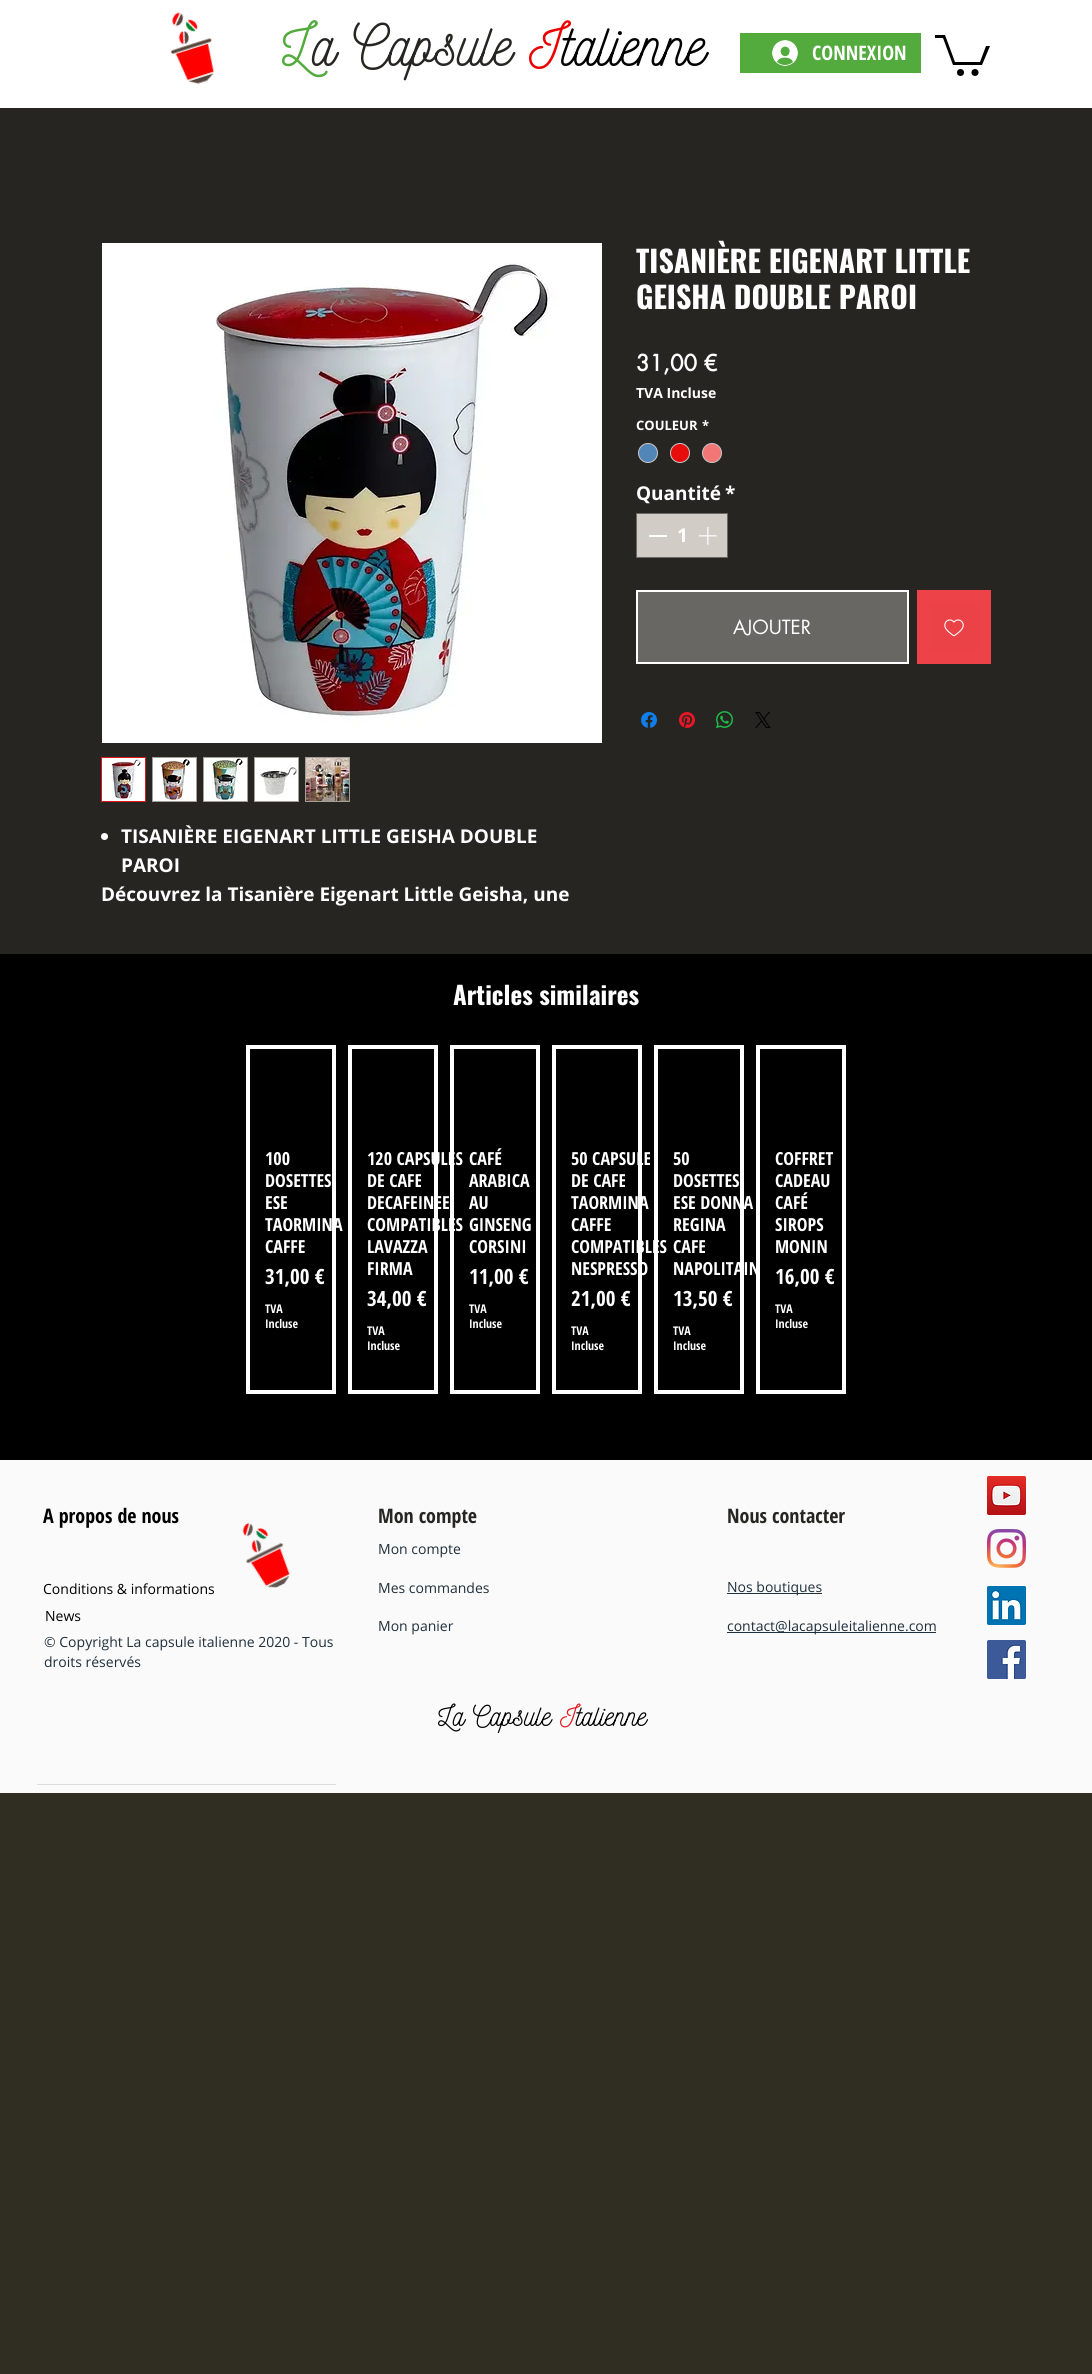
#include <cairo.h>
#include <math.h>
#include <stddef.h>

typedef struct { const char *family; double size; int italic, bold; unsigned color; } style_t;
static cairo_t *ctx;

static void ink(unsigned color) {
    cairo_set_source_rgb(ctx, (color >> 16) / 255.0, (color >> 8 & 255) / 255.0, (color & 255) / 255.0);
}

static void write(double x, double y, const char *s, const style_t *st) {
    cairo_select_font_face(ctx, st->family, st->italic ? CAIRO_FONT_SLANT_ITALIC : CAIRO_FONT_SLANT_NORMAL,
        st->bold ? CAIRO_FONT_WEIGHT_BOLD : CAIRO_FONT_WEIGHT_NORMAL);
    cairo_set_font_size(ctx, st->size);
    ink(st->color);
    cairo_move_to(ctx, x, y);
    cairo_show_text(ctx, s);
}

static void block(double x, double y, double w, double h, unsigned color) {
    ink(color);
    cairo_rectangle(ctx, x, y, w, h);
    cairo_fill(ctx);
}

static void paste(const char *path, double x, double y, double w, double h) {
    cairo_surface_t *image = cairo_image_surface_create_from_png(path);
    cairo_save(ctx);
    cairo_set_source_surface(ctx, image, x, y);
    cairo_rectangle(ctx, x, y, w, h);
    cairo_fill(ctx);
    cairo_restore(ctx);
    cairo_surface_destroy(image);
}

static const style_t s1 = {"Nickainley", 59, 0, 0, 0x52ab3c};
static const style_t s2 = {"Nickainley", 59, 0, 0, 0x272521};
static const style_t s3 = {"Nickainley", 59, 0, 0, 0xeb0000};
static const style_t s4 = {"Nickainley", 59, 0, 0, 0x000000};
static const style_t s5 = {"Open Sans Condensed", 20, 0, 1, 0xffffff};
static const style_t s6 = {"Oswald", 30, 0, 1, 0xffffff};
static const style_t s7 = {"futura", 22, 0, 1, 0xffffff};
static const style_t s8 = {"Open Sans", 14, 0, 1, 0xffffff};
static const style_t s9 = {"Open Sans", 13, 0, 1, 0xffffff};
static const style_t s10 = {"Open Sans", 19, 0, 1, 0xffffff};
static const style_t s11 = {"futura", 19, 0, 0, 0xffffff};
static const style_t s12 = {"Oswald", 25, 0, 1, 0xffffff};
static const style_t s13 = {"Open Sans Condensed", 18, 0, 1, 0xffffff};
static const style_t s14 = {"Open Sans Condensed", 21, 0, 1, 0xffffff};
static const style_t s15 = {"Open Sans Condensed", 12, 0, 1, 0xffffff};
static const style_t s16 = {"Open Sans Condensed", 20, 0, 1, 0x000000};
static const style_t s17 = {"Open Sans", 14, 0, 0, 0x000000};
static const style_t s18 = {"Open Sans", 14, 0, 0, 0x20303c};
static const style_t s19 = {"Open Sans Condensed", 20, 0, 1, 0x272521};
static const style_t s20 = {"Nickainley", 29, 0, 0, 0x000000};
static const style_t s21 = {"Nickainley", 29, 0, 0, 0xe21c21};

int main(void) {
    cairo_surface_t *surface = cairo_image_surface_create(CAIRO_FORMAT_RGB24, 1092, 2374);
    ctx = cairo_create(surface);
    cairo_font_options_t *options = cairo_font_options_create();
    cairo_font_options_set_hint_metrics(options, CAIRO_HINT_METRICS_OFF);
    cairo_font_options_set_hint_style(options, CAIRO_HINT_STYLE_NONE);
    cairo_set_font_options(ctx, options);
    cairo_set_miter_limit(ctx, 4);
    ink(0x302d22);
    cairo_paint(ctx);
    block(0, 0, 1092, 108, 0xffffff);
    paste("pic1.png", 170, 12, 45, 72);
    write(282, 66, "L", &s1);
    write(312, 66, "a Capsule", &s2);
    write(529, 66, "I", &s3);
    write(562, 66, "talienne", &s4);
    block(740, 33, 181, 40, 0x52ab3c);
    paste("pic2.png", 772, 40, 26, 26);
    write(812, 60, "CONNEXION", &s5);
    ink(0x000000);
    cairo_new_path(ctx);
    cairo_move_to(ctx, 990, 46);
    cairo_line_to(ctx, 982, 65);
    cairo_line_to(ctx, 953, 65);
    cairo_line_to(ctx, 943, 38);
    cairo_line_to(ctx, 935, 38);
    cairo_line_to(ctx, 935, 35);
    cairo_line_to(ctx, 945, 35);
    cairo_line_to(ctx, 955, 62);
    cairo_line_to(ctx, 980, 62);
    cairo_line_to(ctx, 986, 46);
    cairo_fill(ctx);
    cairo_arc(ctx, 975, 72.5, 3.5, 0, 2 * M_PI);
    cairo_fill(ctx);
    cairo_arc(ctx, 960.5, 72.5, 3.5, 0, 2 * M_PI);
    cairo_fill(ctx);
    block(0, 108, 1092, 846, 0x272521);
    write(636, 273, "TISANIÈRE EIGENART LITTLE", &s6);
    write(636, 309, "GEISHA DOUBLE PAROI", &s6);
    write(636, 371, "31,00 €", &s7);
    write(636, 398, "TVA Incluse", &s8);
    write(636, 430, "COULEUR", &s9);
    write(702, 430, "*", &s9);
    ink(0x5285b8);
    cairo_new_path(ctx);
    cairo_arc(ctx, 648, 453, 9.5, 0, 2 * M_PI);
    cairo_fill_preserve(ctx);
    ink(0xc9c9c9);
    cairo_set_line_width(ctx, 1);
    cairo_stroke(ctx);
    ink(0xe70d0d);
    cairo_arc(ctx, 680, 453, 9.5, 0, 2 * M_PI);
    cairo_fill_preserve(ctx);
    ink(0xc9c9c9);
    cairo_stroke(ctx);
    ink(0xf37676);
    cairo_arc(ctx, 712, 453, 9.5, 0, 2 * M_PI);
    cairo_fill_preserve(ctx);
    ink(0xc9c9c9);
    cairo_stroke(ctx);
    write(636, 500, "Quantité", &s10);
    write(725, 500, "*", &s10);
    ink(0xd1cdc6);
    cairo_rectangle(ctx, 636.5, 513.5, 91, 44);
    cairo_fill_preserve(ctx);
    ink(0x6b6863);
    cairo_stroke(ctx);
    block(649, 535, 18, 2, 0xffffff);
    write(677, 542, "1", &s10);
    paste("pic3.png", 699, 527, 18, 18);
    ink(0x696764);
    cairo_rectangle(ctx, 637, 591, 271, 72);
    cairo_fill_preserve(ctx);
    ink(0xffffff);
    cairo_set_line_width(ctx, 2);
    cairo_stroke(ctx);
    write(733, 634, "AJOUTER", &s11);
    ink(0xeb4247);
    cairo_rectangle(ctx, 923.5, 596.5, 61, 61);
    cairo_fill_preserve(ctx);
    ink(0xed4247);
    cairo_set_line_width(ctx, 13);
    cairo_stroke(ctx);
    paste("pic4.png", 944, 619, 20, 18);
    paste("pic5.png", 641, 712, 16, 16);
    paste("pic6.png", 679, 712, 16, 16);
    paste("pic7.png", 716, 711, 17, 17);
    paste("pic8.png", 755, 712, 16, 16);
    paste("pic9.png", 102, 243, 500, 500);
    cairo_rectangle(ctx, 101.5, 757.5, 44, 44);
    ink(0xdf1918);
    cairo_set_line_width(ctx, 1);
    cairo_stroke(ctx);
    paste("pic10.png", 102, 758, 43, 43);
    block(152, 757, 45, 45, 0xa39f96);
    paste("pic11.png", 153, 758, 43, 43);
    block(203, 757, 45, 45, 0xa39f96);
    paste("pic12.png", 204, 758, 43, 43);
    block(254, 757, 45, 45, 0xa39f96);
    paste("pic13.png", 255, 758, 43, 43);
    block(305, 757, 45, 45, 0xa39f96);
    paste("pic14.png", 306, 758, 43, 43);
    ink(0xffffff);
    cairo_arc(ctx, 104.5, 836.5, 3.5, 0, 2 * M_PI);
    cairo_fill(ctx);
    write(121, 843, "TISANIÈRE EIGENART LITTLE GEISHA DOUBLE", &s10);
    write(121, 872, "PAROI", &s10);
    write(101, 901, "Découvrez la Tisanière Eigenart Little Geisha, une", &s10);
    block(0, 954, 1092, 506, 0x000000);
    write(453, 1005, "Articles similaires", &s12);
    cairo_rectangle(ctx, 248, 1047, 86, 345);
    cairo_set_line_width(ctx, 4);
    cairo_stroke(ctx);
    write(265, 1165, "100", &s13);
    write(265, 1187, "DOSETTES", &s13);
    write(265, 1209, "ESE", &s13);
    write(265, 1231, "TAORMINA", &s13);
    write(265, 1253, "CAFFE", &s13);
    write(265, 1284, "31,00 €", &s14);
    write(265, 1313, "TVA", &s15);
    write(265, 1328, "Incluse", &s15);
    cairo_rectangle(ctx, 350, 1047, 86, 345);
    cairo_stroke(ctx);
    write(367, 1165, "120 CAPSULES", &s13);
    write(367, 1187, "DE CAFE", &s13);
    write(367, 1209, "DECAFEINEE", &s13);
    write(367, 1231, "COMPATIBLES", &s13);
    write(367, 1253, "LAVAZZA", &s13);
    write(367, 1275, "FIRMA", &s13);
    write(367, 1306, "34,00 €", &s14);
    write(367, 1335, "TVA", &s15);
    write(367, 1350, "Incluse", &s15);
    cairo_rectangle(ctx, 452, 1047, 86, 345);
    cairo_stroke(ctx);
    write(469, 1165, "CAFÉ", &s13);
    write(469, 1187, "ARABICA", &s13);
    write(469, 1209, "AU", &s13);
    write(469, 1231, "GINSENG", &s13);
    write(469, 1253, "CORSINI", &s13);
    write(469, 1284, "11,00 €", &s14);
    write(469, 1313, "TVA", &s15);
    write(469, 1328, "Incluse", &s15);
    cairo_rectangle(ctx, 554, 1047, 86, 345);
    cairo_stroke(ctx);
    write(571, 1165, "50 CAPSULE", &s13);
    write(571, 1187, "DE CAFE", &s13);
    write(571, 1209, "TAORMINA", &s13);
    write(571, 1231, "CAFFE", &s13);
    write(571, 1253, "COMPATIBLES", &s13);
    write(571, 1275, "NESPRESSO", &s13);
    write(571, 1306, "21,00 €", &s14);
    write(571, 1335, "TVA", &s15);
    write(571, 1350, "Incluse", &s15);
    cairo_rectangle(ctx, 656, 1047, 86, 345);
    cairo_stroke(ctx);
    write(673, 1165, "50", &s13);
    write(673, 1187, "DOSETTES", &s13);
    write(673, 1209, "ESE DONNA", &s13);
    write(673, 1231, "REGINA", &s13);
    write(673, 1253, "CAFE", &s13);
    write(673, 1275, "NAPOLITAIN", &s13);
    write(673, 1306, "13,50 €", &s14);
    write(673, 1335, "TVA", &s15);
    write(673, 1350, "Incluse", &s15);
    cairo_rectangle(ctx, 758, 1047, 86, 345);
    cairo_stroke(ctx);
    write(775, 1165, "COFFRET", &s13);
    write(775, 1187, "CADEAU", &s13);
    write(775, 1209, "CAFÉ", &s13);
    write(775, 1231, "SIROPS", &s13);
    write(775, 1253, "MONIN", &s13);
    write(775, 1284, "16,00 €", &s14);
    write(775, 1313, "TVA", &s15);
    write(775, 1328, "Incluse", &s15);
    block(0, 1460, 1092, 333, 0xfafafa);
    write(43, 1523, "A propos de nous", &s16);
    write(43, 1594, "Conditions & informations", &s17);
    paste("pic15.png", 242, 1523, 48, 65);
    write(45, 1621, "News", &s17);
    write(44, 1647, "© Copyright La capsule italienne 2020 - Tous", &s18);
    write(44, 1667, "droits réservés", &s18);
    block(37, 1784, 299, 1, 0xdddcd9);
    write(378, 1523, "Mon compte", &s19);
    write(378, 1554, "Mon compte", &s18);
    write(378, 1593, "Mes commandes", &s18);
    write(378, 1631, "Mon panier", &s18);
    write(438, 1726, "La Capsule", &s20);
    write(560, 1726, "I", &s21);
    write(576, 1726, "talienne", &s20);
    write(727, 1523, "Nous contacter", &s19);
    paste("pic16.png", 987, 1476, 39, 39);
    paste("pic17.png", 987, 1529, 39, 39);
    block(727, 1593, 95, 1, 0x20303c);
    write(727, 1592, "Nos boutiques", &s18);
    paste("pic18.png", 987, 1586, 39, 39);
    block(727, 1632, 209, 1, 0x20303c);
    write(727, 1631, "contact@lacapsuleitalienne.com", &s18);
    paste("pic19.png", 987, 1640, 39, 39);
    cairo_surface_write_to_png(surface, "screenshot.png");
    cairo_font_options_destroy(options);
    cairo_destroy(ctx);
    cairo_surface_destroy(surface);
    return 0;
}
